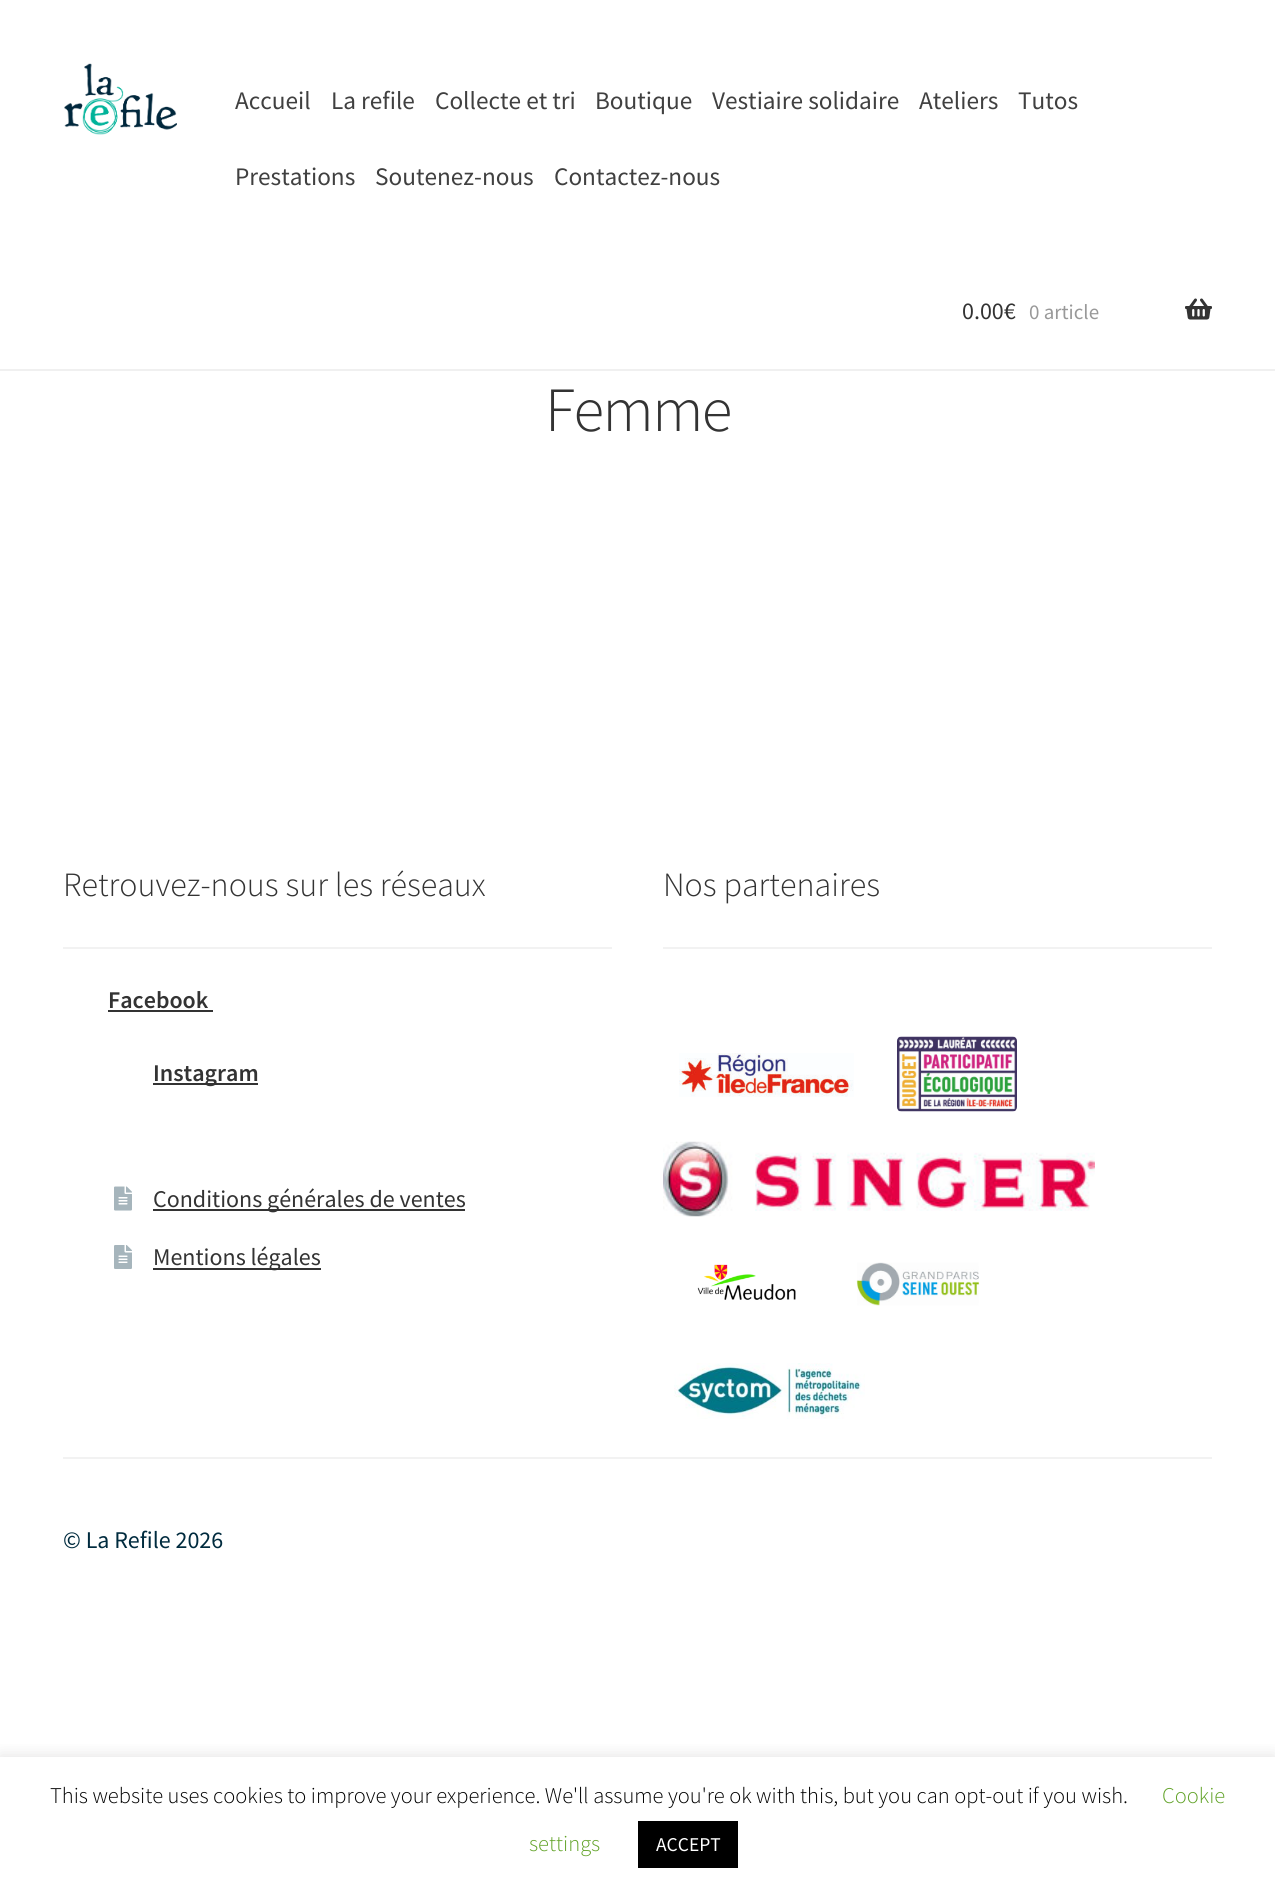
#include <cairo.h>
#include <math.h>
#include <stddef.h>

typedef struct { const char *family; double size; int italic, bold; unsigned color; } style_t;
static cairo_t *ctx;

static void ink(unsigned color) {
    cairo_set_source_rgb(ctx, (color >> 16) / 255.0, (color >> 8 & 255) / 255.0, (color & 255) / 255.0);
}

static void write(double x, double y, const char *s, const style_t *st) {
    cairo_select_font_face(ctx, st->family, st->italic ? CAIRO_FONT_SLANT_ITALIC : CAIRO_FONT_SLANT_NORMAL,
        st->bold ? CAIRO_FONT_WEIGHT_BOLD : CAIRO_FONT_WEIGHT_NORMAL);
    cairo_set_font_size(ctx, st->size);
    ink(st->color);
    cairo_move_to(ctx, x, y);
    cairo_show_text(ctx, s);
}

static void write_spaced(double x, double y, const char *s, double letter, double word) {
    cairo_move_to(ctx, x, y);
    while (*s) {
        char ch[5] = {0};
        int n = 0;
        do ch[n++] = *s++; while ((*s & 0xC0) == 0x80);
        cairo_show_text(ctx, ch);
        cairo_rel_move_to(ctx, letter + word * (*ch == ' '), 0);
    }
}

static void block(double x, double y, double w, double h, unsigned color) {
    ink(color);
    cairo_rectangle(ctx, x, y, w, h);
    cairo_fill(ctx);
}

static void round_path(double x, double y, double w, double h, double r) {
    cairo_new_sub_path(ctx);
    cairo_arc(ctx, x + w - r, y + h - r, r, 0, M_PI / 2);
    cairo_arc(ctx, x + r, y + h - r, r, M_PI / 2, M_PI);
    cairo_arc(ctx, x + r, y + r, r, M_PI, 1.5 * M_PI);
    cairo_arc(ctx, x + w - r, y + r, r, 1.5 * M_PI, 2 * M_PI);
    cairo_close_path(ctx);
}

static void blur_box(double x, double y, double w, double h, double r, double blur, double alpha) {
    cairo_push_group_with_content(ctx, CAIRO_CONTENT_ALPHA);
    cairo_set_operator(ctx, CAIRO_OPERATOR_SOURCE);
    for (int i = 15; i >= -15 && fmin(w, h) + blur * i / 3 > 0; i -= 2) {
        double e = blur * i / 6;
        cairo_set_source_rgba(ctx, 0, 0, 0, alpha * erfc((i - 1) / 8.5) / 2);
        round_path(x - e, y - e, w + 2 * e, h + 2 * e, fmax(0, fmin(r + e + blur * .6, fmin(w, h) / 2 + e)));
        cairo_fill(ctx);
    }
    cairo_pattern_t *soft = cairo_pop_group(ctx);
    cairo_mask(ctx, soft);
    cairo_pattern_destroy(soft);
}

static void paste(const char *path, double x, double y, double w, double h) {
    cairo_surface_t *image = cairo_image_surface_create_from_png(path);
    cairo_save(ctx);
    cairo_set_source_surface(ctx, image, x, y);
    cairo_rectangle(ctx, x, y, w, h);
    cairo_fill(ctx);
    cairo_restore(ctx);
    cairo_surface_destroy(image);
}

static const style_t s1 = {"Source Sans Pro", 25.25, 0, 0, 0x404040};
static const style_t s2 = {"Source Sans Pro", 24, 0, 0, 0x333333};
static const style_t s3 = {"Source Sans Pro", 21, 0, 0, 0x999999};
static const style_t s4 = {"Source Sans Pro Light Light", 34, 0, 0, 0x333333};
static const style_t s5 = {"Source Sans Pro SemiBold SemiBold", 24, 0, 0, 0x333333};
static const style_t s6 = {"Source Sans Pro", 24, 0, 0, 0x002b3e};
static const style_t s7 = {"Source Sans Pro Light Light", 22.5, 0, 0, 0x000000};
static const style_t s8 = {"Source Sans Pro Light Light", 22.5, 0, 0, 0x62a329};
static const style_t s9 = {"Source Sans Pro", 19.5, 0, 0, 0xffffff};

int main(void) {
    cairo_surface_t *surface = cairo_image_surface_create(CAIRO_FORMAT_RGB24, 1275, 1892);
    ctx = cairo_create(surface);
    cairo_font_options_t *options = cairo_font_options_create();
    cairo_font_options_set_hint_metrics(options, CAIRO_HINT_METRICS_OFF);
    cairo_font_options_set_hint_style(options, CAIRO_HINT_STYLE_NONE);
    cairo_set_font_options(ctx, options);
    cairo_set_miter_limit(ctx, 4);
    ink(0xffffff);
    cairo_paint(ctx);
    block(0, 369, 1275, 2, 0xf0f0f0);
    paste("pic1.png", 64, 63, 113, 72);
    write(235, 109, "Accueil", &s1);
    write(331, 109, "La refile", &s1);
    write(435, 109, "Collecte et tri", &s1);
    write(595, 109, "Boutique", &s1);
    write(712, 109, "Vestiaire solidaire", &s1);
    write(919, 109, "Ateliers", &s1);
    write(1018, 109, "Tutos", &s1);
    write(235, 185, "Prestations", &s1);
    write(375, 185, "Soutenez-nous", &s1);
    write(554, 185, "Contactez-nous", &s1);
    write(962, 319, "0.00€", &s2);
    write(1029, 319, "0 article", &s3);
    paste("pic2.png", 1185, 298, 27, 22);
    cairo_select_font_face(ctx, "Source Sans Pro Light Light", CAIRO_FONT_SLANT_NORMAL, CAIRO_FONT_WEIGHT_NORMAL);
    cairo_set_font_size(ctx, 63);
    ink(0x333333);
    write_spaced(545, 431, "Femme", -1.5, 0);
    block(63, 1457, 1149, 2, 0xf2f2f2);
    block(63, 947, 549, 2, 0xf2f2f2);
    write(63, 896, "Retrouvez-nous sur les réseaux", &s4);
    write(108, 1008, "Facebook", &s5);
    block(108, 1010, 105, 2, 0x333333);
    block(153, 1083, 105, 2, 0x333333);
    write(153, 1081, "Instagram", &s5);
    paste("pic3.png", 114, 1186, 18, 25);
    block(153, 1209, 312, 2, 0x333333);
    write(153, 1207, "Conditions générales de ventes", &s2);
    paste("pic4.png", 114, 1245, 18, 24);
    block(153, 1268, 168, 2, 0x333333);
    write(153, 1265, "Mentions légales", &s2);
    block(663, 947, 549, 2, 0xf2f2f2);
    write(663, 896, "Nos partenaires", &s4);
    paste("pic5.png", 679, 1053, 175, 44);
    paste("pic6.png", 897, 1036, 120, 76);
    paste("pic7.png", 663, 1141, 432, 76);
    paste("pic8.png", 697, 1264, 99, 36);
    paste("pic9.png", 856, 1262, 124, 44);
    paste("pic10.png", 674, 1363, 191, 56);
    write(63, 1548, "© La Refile 2026", &s6);
    cairo_save(ctx);
    cairo_rectangle(ctx, 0, 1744, 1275, 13);
    cairo_clip(ctx);
    ink(0xacabab);
    blur_box(0, 1755, 1275, 137, 0, 7.5, 0.3);
    cairo_restore(ctx);
    write(50, 1803, "This website uses cookies to improve your experience. We'll assume you're ok with this, but you can opt-out if you wish.", &s7);
    write(1162, 1803, "Cookie", &s8);
    write(529, 1851, "settings", &s8);
    block(638, 1821, 100, 47, 0x000000);
    write(656, 1851, "ACCEPT", &s9);
    cairo_surface_write_to_png(surface, "screenshot.png");
    cairo_font_options_destroy(options);
    cairo_destroy(ctx);
    cairo_surface_destroy(surface);
    return 0;
}
